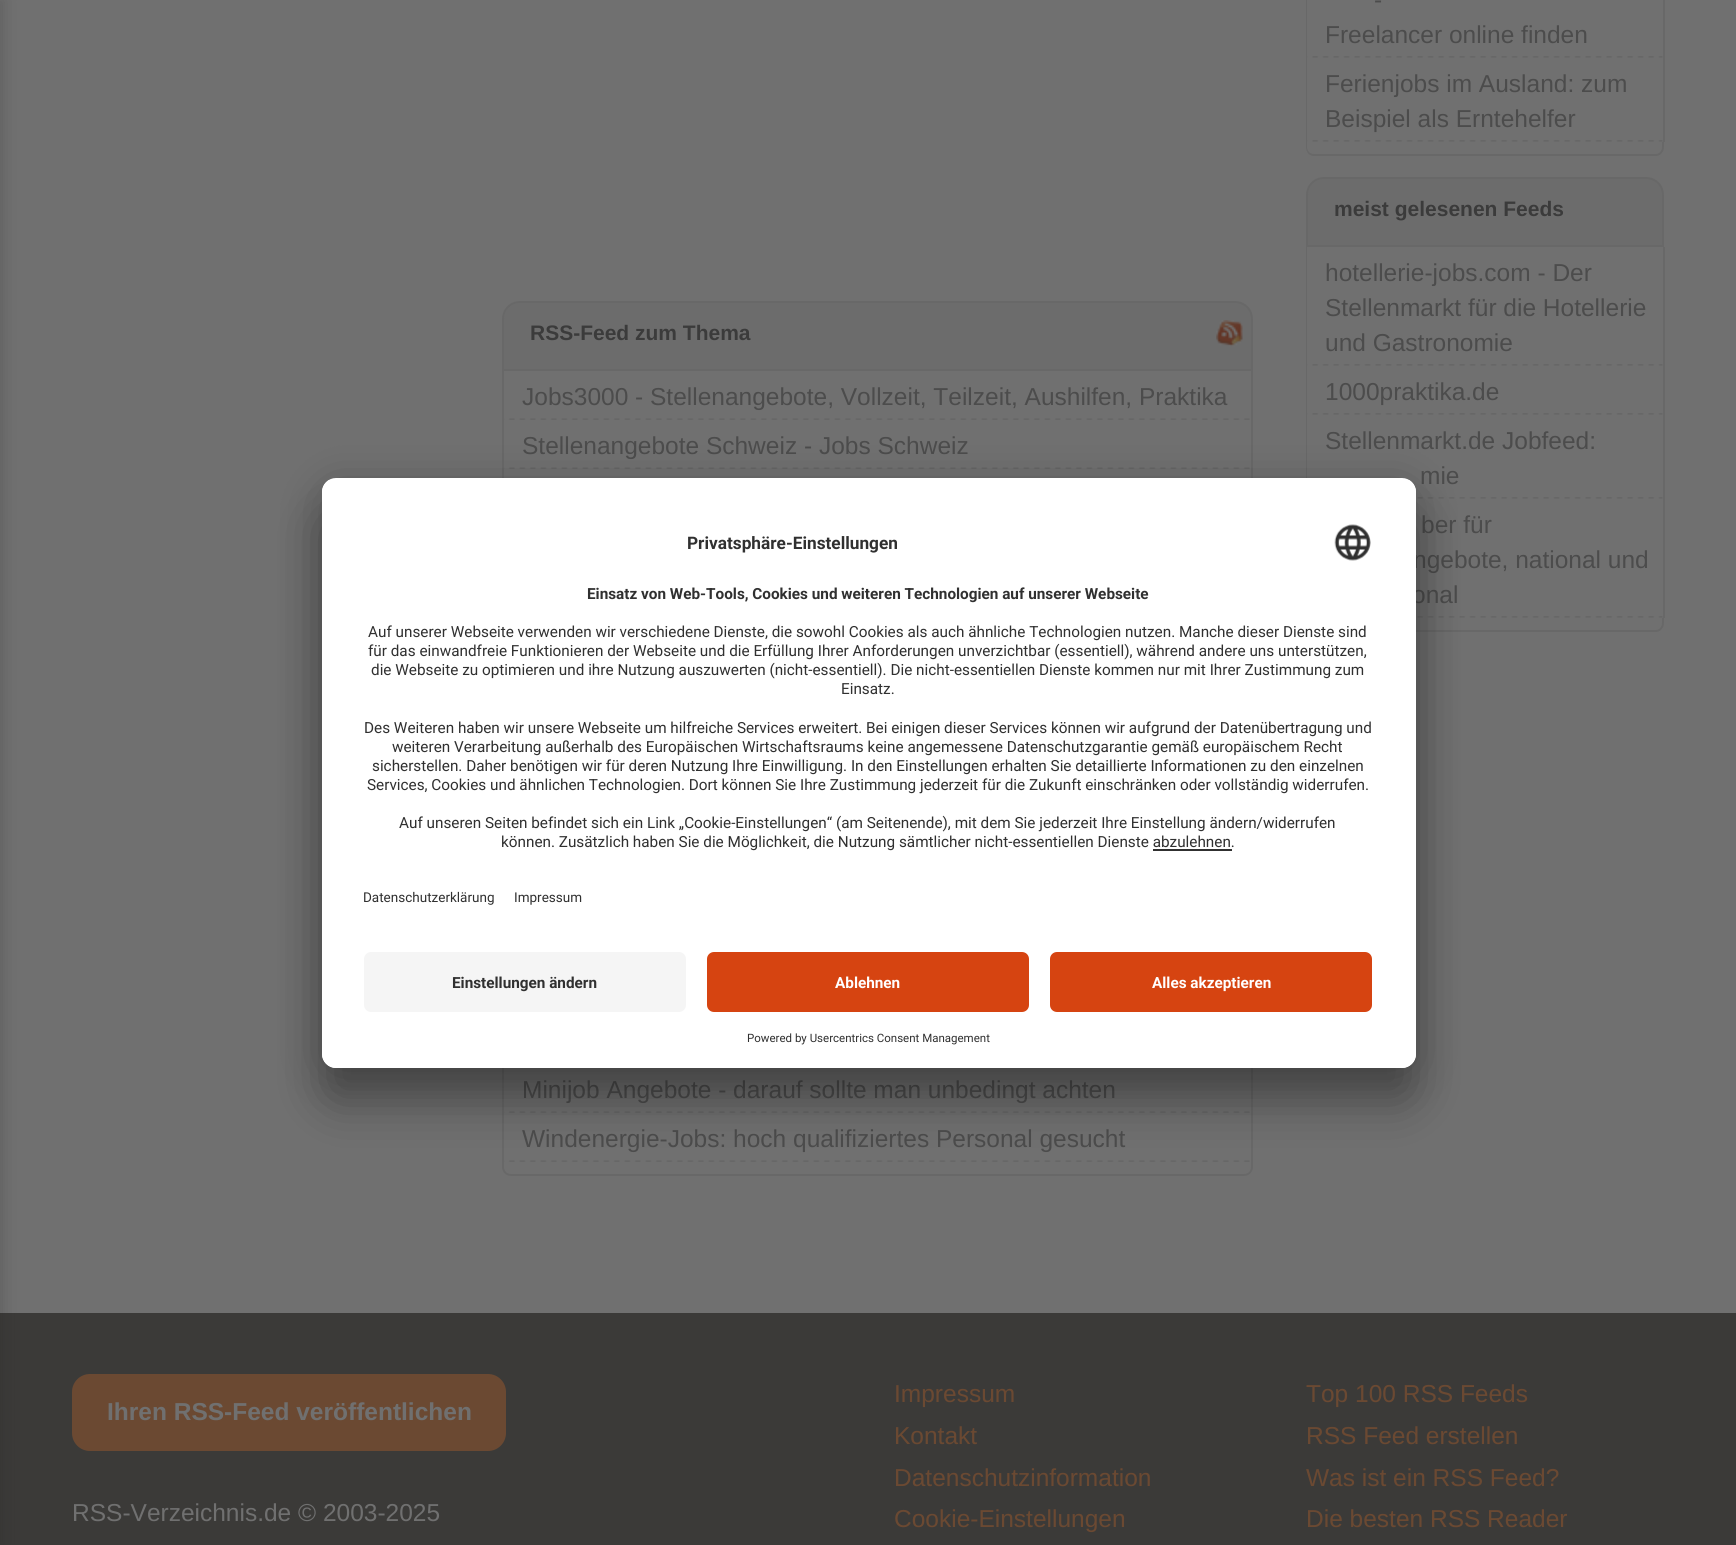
#include <cairo.h>
#include <math.h>
#include <stddef.h>

typedef struct { const char *family; double size; int italic, bold; unsigned color; } style_t;
static cairo_t *ctx;

static void ink(unsigned color) {
    cairo_set_source_rgb(ctx, (color >> 16) / 255.0, (color >> 8 & 255) / 255.0, (color & 255) / 255.0);
}

static void write(double x, double y, const char *s, const style_t *st) {
    cairo_select_font_face(ctx, st->family, st->italic ? CAIRO_FONT_SLANT_ITALIC : CAIRO_FONT_SLANT_NORMAL,
        st->bold ? CAIRO_FONT_WEIGHT_BOLD : CAIRO_FONT_WEIGHT_NORMAL);
    cairo_set_font_size(ctx, st->size);
    ink(st->color);
    cairo_move_to(ctx, x, y);
    cairo_show_text(ctx, s);
}

static void block(double x, double y, double w, double h, unsigned color) {
    ink(color);
    cairo_rectangle(ctx, x, y, w, h);
    cairo_fill(ctx);
}

static void round_path(double x, double y, double w, double h, double r) {
    cairo_new_sub_path(ctx);
    cairo_arc(ctx, x + w - r, y + h - r, r, 0, M_PI / 2);
    cairo_arc(ctx, x + r, y + h - r, r, M_PI / 2, M_PI);
    cairo_arc(ctx, x + r, y + r, r, M_PI, 1.5 * M_PI);
    cairo_arc(ctx, x + w - r, y + r, r, 1.5 * M_PI, 2 * M_PI);
    cairo_close_path(ctx);
}

static void blur_box(double x, double y, double w, double h, double r, double blur, double alpha) {
    cairo_push_group_with_content(ctx, CAIRO_CONTENT_ALPHA);
    cairo_set_operator(ctx, CAIRO_OPERATOR_SOURCE);
    for (int i = 15; i >= -15 && fmin(w, h) + blur * i / 3 > 0; i -= 2) {
        double e = blur * i / 6;
        cairo_set_source_rgba(ctx, 0, 0, 0, alpha * erfc((i - 1) / 8.5) / 2);
        round_path(x - e, y - e, w + 2 * e, h + 2 * e, fmax(0, fmin(r + e + blur * .6, fmin(w, h) / 2 + e)));
        cairo_fill(ctx);
    }
    cairo_pattern_t *soft = cairo_pop_group(ctx);
    cairo_mask(ctx, soft);
    cairo_pattern_destroy(soft);
}

static void paste(const char *path, double x, double y, double w, double h) {
    cairo_surface_t *image = cairo_image_surface_create_from_png(path);
    cairo_save(ctx);
    cairo_set_source_surface(ctx, image, x, y);
    cairo_rectangle(ctx, x, y, w, h);
    cairo_fill(ctx);
    cairo_restore(ctx);
    cairo_surface_destroy(image);
}

static const style_t s1 = {"Liberation Sans", 21, 0, 1, 0x3b3b3b};
static const style_t s2 = {"Liberation Sans", 24.5, 0, 0, 0x4c4c4c};
static const style_t s3 = {"Roboto", 17.25, 0, 1, 0x303030};
static const style_t s4 = {"Roboto", 15.3, 0, 1, 0x303030};
static const style_t s5 = {"Roboto", 15.3, 0, 0, 0x303030};
static const style_t s6 = {"Roboto", 13.5, 0, 0, 0x303030};
static const style_t s7 = {"Roboto", 15.3, 0, 1, 0xffffff};
static const style_t s8 = {"Roboto", 11.5, 0, 0, 0x303030};
static const style_t s9 = {"Liberation Sans", 24.5, 0, 1, 0x707070};
static const style_t s10 = {"Liberation Sans", 24.5, 0, 0, 0x707070};
static const style_t s11 = {"Liberation Sans", 24.5, 0, 0, 0x6b4932};

int main(void) {
    cairo_surface_t *surface = cairo_image_surface_create(CAIRO_FORMAT_RGB24, 1736, 1545);
    ctx = cairo_create(surface);
    cairo_font_options_t *options = cairo_font_options_create();
    cairo_font_options_set_hint_metrics(options, CAIRO_HINT_METRICS_OFF);
    cairo_font_options_set_hint_style(options, CAIRO_HINT_STYLE_NONE);
    cairo_set_font_options(ctx, options);
    cairo_set_miter_limit(ctx, 4);
    ink(0x707070);
    cairo_paint(ctx);
    block(0, 1313, 1736, 232, 0x3b3a38);
    ink(0x242424);
    blur_box(-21, 0, 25, 1545, 0, 7, 0.2);
    ink(0x6c6c6c);
    cairo_new_path(ctx);
    cairo_move_to(ctx, 520, 302);
    cairo_line_to(ctx, 1235, 302);
    cairo_curve_to(ctx, 1244.5, 302, 1252, 309.5, 1252, 319);
    cairo_line_to(ctx, 1252, 370);
    cairo_line_to(ctx, 503, 370);
    cairo_line_to(ctx, 503, 319);
    cairo_curve_to(ctx, 503, 309.5, 510.5, 302, 520, 302);
    cairo_close_path(ctx);
    cairo_fill_preserve(ctx);
    ink(0x686868);
    cairo_stroke(ctx);
    write(530, 340, "RSS-Feed zum Thema", &s1);
    paste("pic1.png", 1216, 320, 27, 27);
    block(1251, 371, 2, 107, 0x686868);
    block(502, 371, 2, 107, 0x686868);
    paste("pic2.png", 504, 418, 746, 2);
    write(522, 405, "Jobs3000 - Stellenangebote, Vollzeit, Teilzeit, Aushilfen, Praktika", &s2);
    paste("pic2.png", 504, 467, 746, 2);
    write(522, 454, "Stellenangebote Schweiz - Jobs Schweiz", &s2);
    block(1251, 1068, 2, 94, 0x686868);
    block(502, 1068, 2, 94, 0x686868);
    paste("pic2.png", 504, 1111, 746, 2);
    write(522, 1098, "Minijob Angebote - darauf sollte man unbedingt achten", &s2);
    paste("pic2.png", 504, 1160, 746, 2);
    write(522, 1147, "Windenergie-Jobs: hoch qualifiziertes Personal gesucht", &s2);
    ink(0x686868);
    cairo_set_fill_rule(ctx, CAIRO_FILL_RULE_EVEN_ODD);
    cairo_new_path(ctx);
    cairo_move_to(ctx, 502, 1162);
    cairo_line_to(ctx, 1253, 1162);
    cairo_line_to(ctx, 1253, 1167);
    cairo_curve_to(ctx, 1253, 1172, 1249, 1176, 1244, 1176);
    cairo_line_to(ctx, 511, 1176);
    cairo_curve_to(ctx, 506, 1176, 502, 1172, 502, 1167);
    cairo_close_path(ctx);
    cairo_move_to(ctx, 504, 1162);
    cairo_line_to(ctx, 1251, 1162);
    cairo_line_to(ctx, 1251, 1167);
    cairo_curve_to(ctx, 1251, 1171, 1248, 1174, 1244, 1174);
    cairo_line_to(ctx, 511, 1174);
    cairo_curve_to(ctx, 507, 1174, 504, 1171, 504, 1167);
    cairo_close_path(ctx);
    cairo_fill(ctx);
    block(1663, 0, 2, 142, 0x686868);
    block(1306, 0, 1, 142, 0x686868);
    paste("pic3.png", 1307, 56, 356, 2);
    write(1374, 8, "-", &s2);
    write(1325, 43, "Freelancer online finden", &s2);
    paste("pic3.png", 1307, 140, 356, 2);
    write(1325, 92, "Ferienjobs im Ausland: zum", &s2);
    write(1325, 127, "Beispiel als Erntehelfer", &s2);
    ink(0x686868);
    cairo_new_path(ctx);
    cairo_move_to(ctx, 1306, 142);
    cairo_line_to(ctx, 1664, 142);
    cairo_line_to(ctx, 1664, 147);
    cairo_curve_to(ctx, 1664, 152, 1660, 156, 1656, 156);
    cairo_line_to(ctx, 1314, 156);
    cairo_curve_to(ctx, 1309, 156, 1306, 152, 1306, 147);
    cairo_close_path(ctx);
    cairo_move_to(ctx, 1307, 142);
    cairo_line_to(ctx, 1662, 142);
    cairo_line_to(ctx, 1662, 147);
    cairo_curve_to(ctx, 1662, 151, 1659, 154, 1656, 154);
    cairo_line_to(ctx, 1314, 154);
    cairo_curve_to(ctx, 1310, 154, 1307, 151, 1307, 147);
    cairo_close_path(ctx);
    cairo_fill(ctx);
    ink(0x6c6c6c);
    cairo_new_path(ctx);
    cairo_move_to(ctx, 1324, 178);
    cairo_line_to(ctx, 1646, 178);
    cairo_curve_to(ctx, 1655.5, 178, 1663, 185.5, 1663, 195);
    cairo_line_to(ctx, 1663, 246);
    cairo_line_to(ctx, 1307, 246);
    cairo_line_to(ctx, 1307, 195);
    cairo_curve_to(ctx, 1307, 185.5, 1314.5, 178, 1324, 178);
    cairo_close_path(ctx);
    cairo_fill_preserve(ctx);
    ink(0x686868);
    cairo_stroke(ctx);
    write(1334, 216, "meist gelesenen Feeds", &s1);
    block(1663, 247, 2, 371, 0x686868);
    block(1306, 247, 1, 231, 0x686868);
    paste("pic3.png", 1307, 364, 356, 2);
    write(1325, 281, "hotellerie-jobs.com - Der", &s2);
    write(1325, 316, "Stellenmarkt für die Hotellerie", &s2);
    write(1325, 351, "und Gastronomie", &s2);
    paste("pic3.png", 1307, 413, 356, 2);
    write(1325, 400, "1000praktika.de", &s2);
    paste("pic4.png", 1417, 497, 246, 2);
    write(1325, 449, "Stellenmarkt.de Jobfeed:", &s2);
    write(1420, 484, "mie", &s2);
    paste("pic4.png", 1417, 616, 246, 2);
    write(1421, 533, "ber für", &s2);
    write(1413, 568, "ngebote, national und", &s2);
    write(1412, 603, "onal", &s2);
    ink(0x686868);
    cairo_new_path(ctx);
    cairo_move_to(ctx, 1306, 618);
    cairo_line_to(ctx, 1664, 618);
    cairo_line_to(ctx, 1664, 623);
    cairo_curve_to(ctx, 1664, 628, 1660, 632, 1656, 632);
    cairo_line_to(ctx, 1314, 632);
    cairo_curve_to(ctx, 1309, 632, 1306, 628, 1306, 623);
    cairo_close_path(ctx);
    cairo_move_to(ctx, 1307, 618);
    cairo_line_to(ctx, 1662, 618);
    cairo_line_to(ctx, 1662, 623);
    cairo_curve_to(ctx, 1662, 627, 1659, 630, 1656, 630);
    cairo_line_to(ctx, 1314, 630);
    cairo_curve_to(ctx, 1310, 630, 1307, 627, 1307, 623);
    cairo_close_path(ctx);
    cairo_fill(ctx);
    ink(0x000000);
    blur_box(322, 513, 1094, 590, 14, 24.5, 0.3);
    blur_box(322, 487, 1094, 589, 14, 23, 0.22);
    ink(0xffffff);
    round_path(322, 478, 1094, 590, 14);
    cairo_fill(ctx);
    cairo_save(ctx);
    cairo_set_fill_rule(ctx, CAIRO_FILL_RULE_WINDING);
    round_path(322, 478, 1094, 590, 14);
    cairo_clip(ctx);
    cairo_new_path(ctx);
    cairo_move_to(ctx, 336, 478);
    cairo_line_to(ctx, 1402, 478);
    cairo_curve_to(ctx, 1409.5, 478, 1416, 484.5, 1416, 492);
    cairo_line_to(ctx, 1416, 938);
    cairo_line_to(ctx, 322, 938);
    cairo_line_to(ctx, 322, 492);
    cairo_curve_to(ctx, 322, 484.5, 328.5, 478, 336, 478);
    cairo_close_path(ctx);
    cairo_clip(ctx);
    block(322, 480, 1094, 458, 0xffffff);
    cairo_restore(ctx);
    write(687, 549, "Privatsphäre-Einstellungen", &s3);
    paste("pic5.png", 1334, 524, 37, 37);
    write(587, 599, "Einsatz von Web-Tools, Cookies und weiteren Technologien auf unserer Webseite", &s4);
    write(368, 637, "Auf unserer Webseite verwenden wir verschiedene Dienste, die sowohl Cookies als auch ähnliche Technologien nutzen. Manche dieser Dienste sind", &s5);
    write(368, 656, "für das einwandfreie Funktionieren der Webseite und die Erfüllung Ihrer Anforderungen unverzichtbar (essentiell), während andere uns unterstützen,", &s5);
    write(371, 675, "die Webseite zu optimieren und ihre Nutzung auszuwerten (nicht-essentiell). Die nicht-essentiellen Dienste kommen nur mit Ihrer Zustimmung zum", &s5);
    write(841, 694, "Einsatz.", &s5);
    write(364, 733, "Des Weiteren haben wir unsere Webseite um hilfreiche Services erweitert. Bei einigen dieser Services können wir aufgrund der Datenübertragung und", &s5);
    write(392, 752, "weiteren Verarbeitung außerhalb des Europäischen Wirtschaftsraums keine angemessene Datenschutzgarantie gemäß europäischem Recht", &s5);
    write(372, 771, "sicherstellen. Daher benötigen wir für deren Nutzung Ihre Einwilligung. In den Einstellungen erhalten Sie detaillierte Informationen zu den einzelnen", &s5);
    write(367, 790, "Services, Cookies und ähnlichen Technologien. Dort können Sie Ihre Zustimmung jederzeit für die Zukunft einschränken oder vollständig widerrufen.", &s5);
    write(399, 828, "Auf unseren Seiten befindet sich ein Link „Cookie-Einstellungen“ (am Seitenende), mit dem Sie jederzeit Ihre Einstellung ändern/widerrufen", &s5);
    write(501, 847, "können. Zusätzlich haben Sie die Möglichkeit, die Nutzung sämtlicher nicht-essentiellen Dienste abzulehnen.", &s5);
    block(1153, 849, 79, 2, 0x303030);
    write(363, 902, "Datenschutzerklärung", &s6);
    write(514, 902, "Impressum", &s6);
    ink(0xffffff);
    cairo_new_path(ctx);
    cairo_move_to(ctx, 322, 938);
    cairo_line_to(ctx, 1416, 938);
    cairo_line_to(ctx, 1416, 1054);
    cairo_curve_to(ctx, 1416, 1061.5, 1409.5, 1068, 1402, 1068);
    cairo_line_to(ctx, 336, 1068);
    cairo_curve_to(ctx, 328.5, 1068, 322, 1061.5, 322, 1054);
    cairo_close_path(ctx);
    cairo_fill(ctx);
    ink(0xf5f5f5);
    round_path(364, 952, 322, 60, 7);
    cairo_fill(ctx);
    write(452, 988, "Einstellungen ändern", &s4);
    ink(0xd64411);
    round_path(707, 952, 322, 60, 7);
    cairo_fill(ctx);
    write(835, 988, "Ablehnen", &s7);
    ink(0xd64411);
    round_path(1050, 952, 322, 60, 7);
    cairo_fill(ctx);
    write(1152, 988, "Alles akzeptieren", &s7);
    write(747, 1042, "Powered by Usercentrics Consent Management", &s8);
    ink(0x6b4932);
    round_path(72, 1374, 434, 77, 18);
    cairo_fill(ctx);
    write(107, 1420, "Ihren RSS-Feed veröffentlichen", &s9);
    write(72, 1521, "RSS-Verzeichnis.de © 2003-2025", &s10);
    write(894, 1402, "Impressum", &s11);
    write(894, 1444, "Kontakt", &s11);
    write(894, 1486, "Datenschutzinformation", &s11);
    write(894, 1527, "Cookie-Einstellungen", &s11);
    write(1306, 1402, "Top 100 RSS Feeds", &s11);
    write(1306, 1444, "RSS Feed erstellen", &s11);
    write(1306, 1486, "Was ist ein RSS Feed?", &s11);
    write(1306, 1527, "Die besten RSS Reader", &s11);
    cairo_surface_write_to_png(surface, "screenshot.png");
    cairo_font_options_destroy(options);
    cairo_destroy(ctx);
    cairo_surface_destroy(surface);
    return 0;
}
